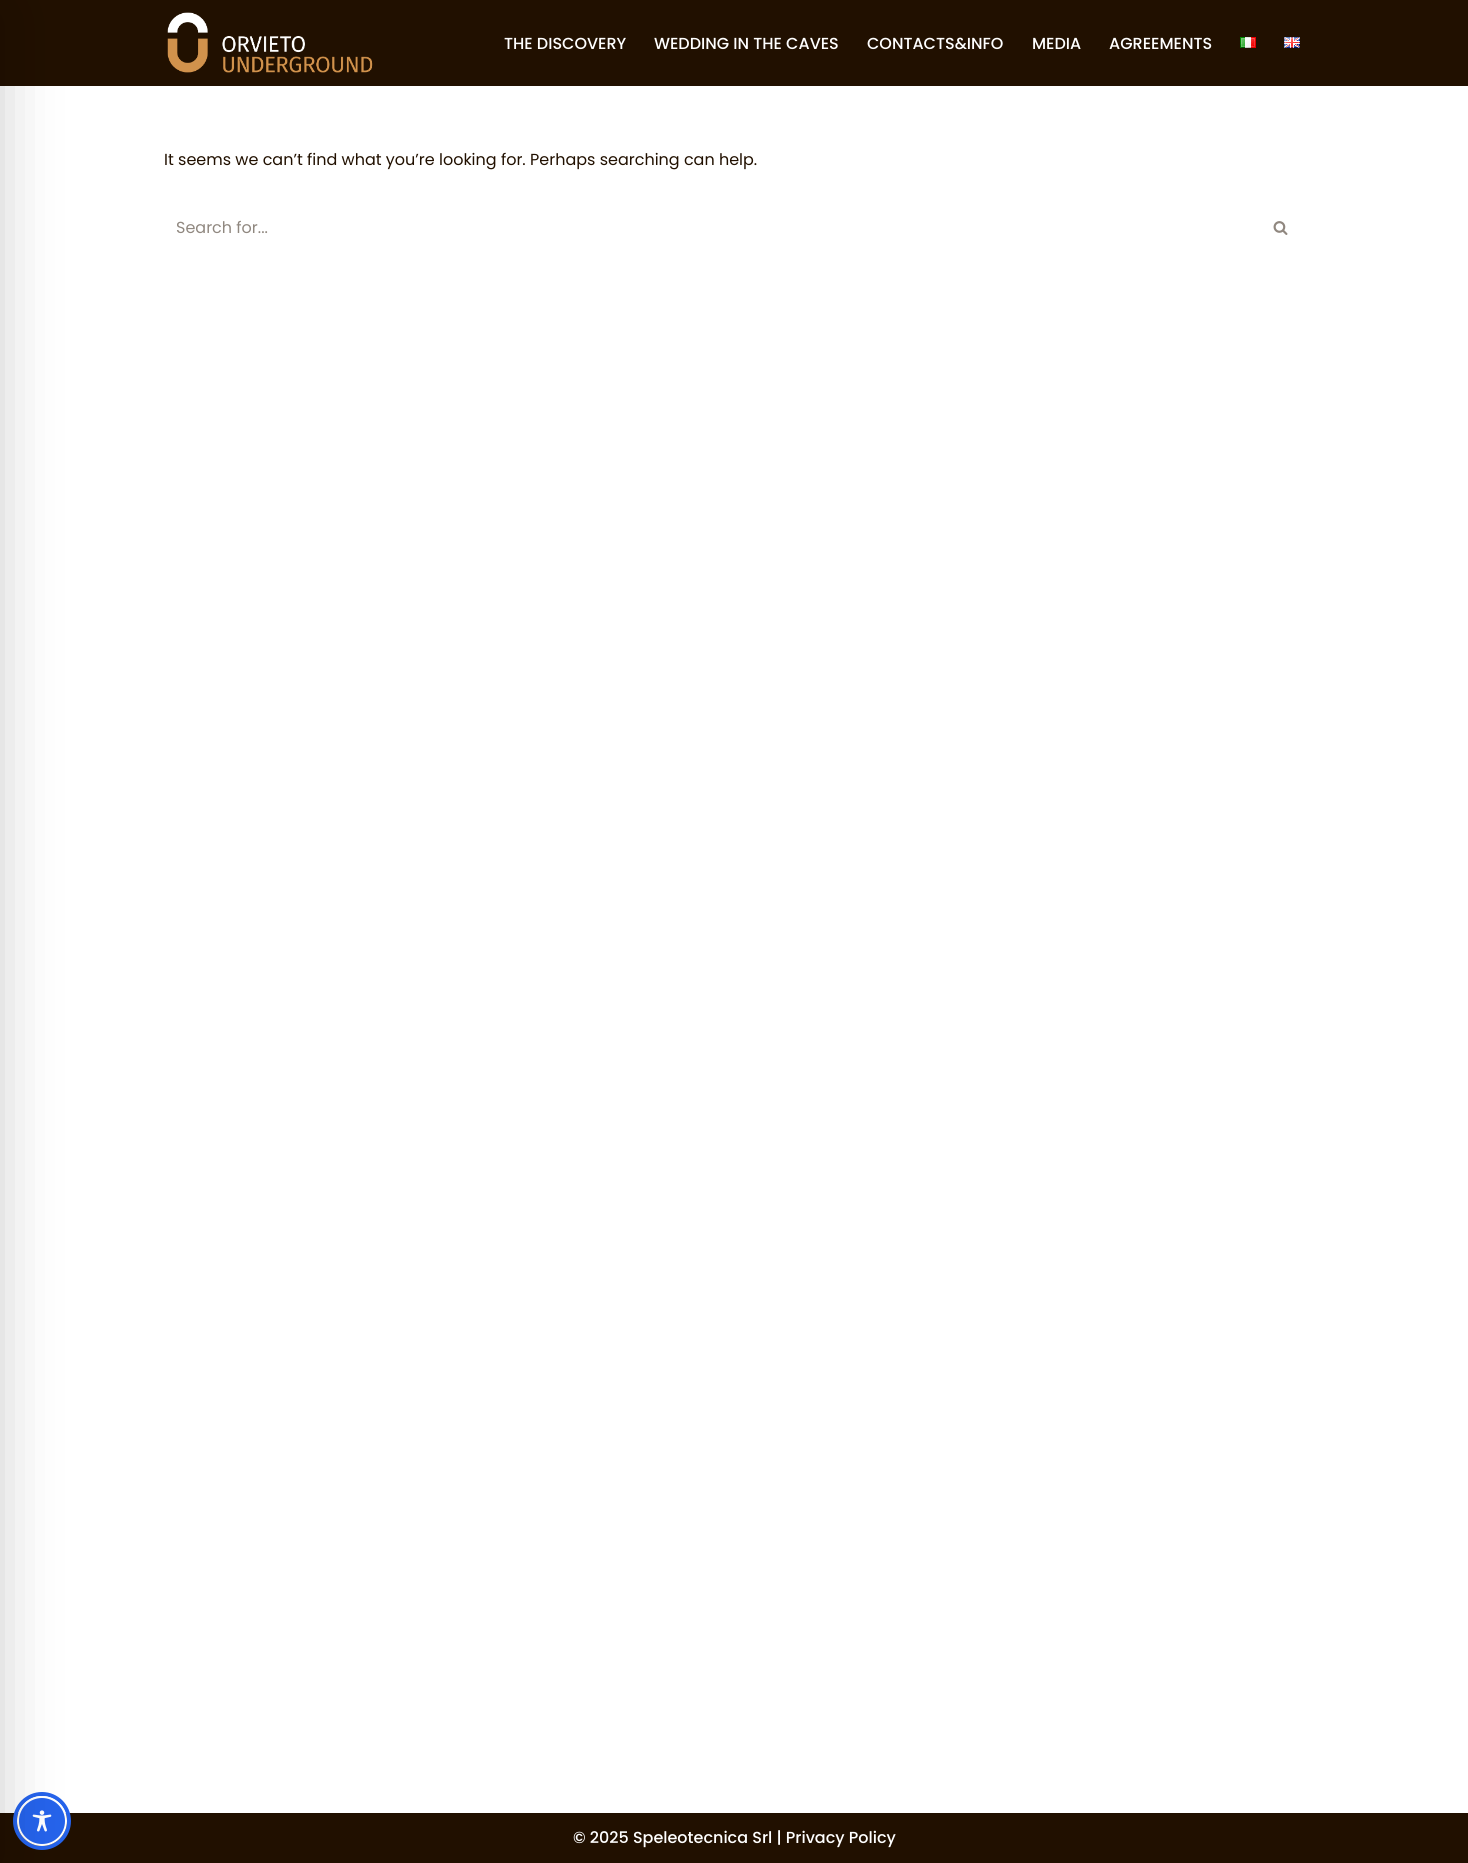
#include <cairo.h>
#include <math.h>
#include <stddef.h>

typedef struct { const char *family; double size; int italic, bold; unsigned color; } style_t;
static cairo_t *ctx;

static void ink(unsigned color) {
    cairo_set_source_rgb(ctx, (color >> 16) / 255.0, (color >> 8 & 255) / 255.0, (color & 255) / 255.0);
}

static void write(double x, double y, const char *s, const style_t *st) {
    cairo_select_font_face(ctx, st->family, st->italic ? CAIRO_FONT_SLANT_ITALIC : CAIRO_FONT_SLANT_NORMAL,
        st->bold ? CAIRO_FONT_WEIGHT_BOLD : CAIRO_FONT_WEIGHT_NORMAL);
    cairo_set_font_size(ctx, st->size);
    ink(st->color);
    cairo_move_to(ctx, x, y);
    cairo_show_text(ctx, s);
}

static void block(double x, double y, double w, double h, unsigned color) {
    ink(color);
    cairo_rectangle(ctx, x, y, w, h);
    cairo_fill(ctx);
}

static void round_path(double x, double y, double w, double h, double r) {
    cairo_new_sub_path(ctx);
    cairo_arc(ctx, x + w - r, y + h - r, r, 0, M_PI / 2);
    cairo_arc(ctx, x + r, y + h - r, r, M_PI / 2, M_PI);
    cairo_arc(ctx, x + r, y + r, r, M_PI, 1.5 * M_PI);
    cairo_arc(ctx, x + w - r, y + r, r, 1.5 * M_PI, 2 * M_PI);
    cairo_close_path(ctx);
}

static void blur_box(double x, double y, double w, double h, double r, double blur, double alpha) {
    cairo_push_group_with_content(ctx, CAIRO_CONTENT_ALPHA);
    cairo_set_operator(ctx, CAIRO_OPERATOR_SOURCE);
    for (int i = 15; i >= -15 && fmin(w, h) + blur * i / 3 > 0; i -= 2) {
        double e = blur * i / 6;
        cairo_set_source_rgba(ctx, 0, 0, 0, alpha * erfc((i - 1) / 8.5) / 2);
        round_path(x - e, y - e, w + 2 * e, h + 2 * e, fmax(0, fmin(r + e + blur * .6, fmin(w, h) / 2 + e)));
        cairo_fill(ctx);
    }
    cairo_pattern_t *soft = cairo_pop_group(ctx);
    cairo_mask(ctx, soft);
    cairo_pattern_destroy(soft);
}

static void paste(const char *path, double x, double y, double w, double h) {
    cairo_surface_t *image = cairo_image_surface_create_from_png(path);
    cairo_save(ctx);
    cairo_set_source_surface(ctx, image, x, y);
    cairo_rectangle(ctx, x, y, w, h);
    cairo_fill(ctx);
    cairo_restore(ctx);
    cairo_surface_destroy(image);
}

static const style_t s1 = {"Poppins Medium", 16, 0, 0, 0xffffff};
static const style_t s2 = {"Poppins", 16, 0, 0, 0x211000};
static const style_t s3 = {"Poppins", 16, 0, 0, 0x908880};

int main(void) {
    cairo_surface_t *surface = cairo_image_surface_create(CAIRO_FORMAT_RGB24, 1468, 1863);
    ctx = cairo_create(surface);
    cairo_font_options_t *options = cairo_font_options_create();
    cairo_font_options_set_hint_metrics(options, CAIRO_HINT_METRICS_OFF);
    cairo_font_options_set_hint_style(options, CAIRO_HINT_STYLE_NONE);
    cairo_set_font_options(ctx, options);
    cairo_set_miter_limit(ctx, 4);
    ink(0xffffff);
    cairo_paint(ctx);
    block(0, 0, 1468, 86, 0x211000);
    block(0, 1813, 1468, 50, 0x211000);
    cairo_arc(ctx, 42, 1821, 27, 0, 2 * M_PI);
    ink(0x2563eb);
    cairo_set_line_width(ctx, 4);
    cairo_stroke(ctx);
    cairo_arc(ctx, 42, 1821, 24, 0, 2 * M_PI);
    cairo_fill_preserve(ctx);
    ink(0xffffff);
    cairo_set_line_width(ctx, 2);
    cairo_stroke(ctx);
    paste("pic5.png", 32, 1810, 20, 22);
    ink(0x000000);
    blur_box(-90, 10, 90, 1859, 0, 30, 0.2);
    paste("pic1.png", 167, 12, 206, 61);
    write(504, 49, "THE DISCOVERY", &s1);
    write(654, 49, "WEDDING IN THE CAVES", &s1);
    write(867, 49, "CONTACTS&INFO", &s1);
    write(1032, 49, "MEDIA", &s1);
    write(1109, 49, "AGREEMENTS", &s1);
    paste("pic2.png", 1240, 37, 16, 11);
    paste("pic3.png", 1284, 37, 16, 11);
    write(164, 165, "It seems we can’t find what you’re looking for. Perhaps searching can help.", &s2);
    write(176, 233, "Search for...", &s3);
    paste("pic4.png", 1273, 221, 15, 14);
    write(573, 1843, "© 2025 Speleotecnica Srl | Privacy Policy", &s1);
    cairo_surface_write_to_png(surface, "screenshot.png");
    cairo_font_options_destroy(options);
    cairo_destroy(ctx);
    cairo_surface_destroy(surface);
    return 0;
}
